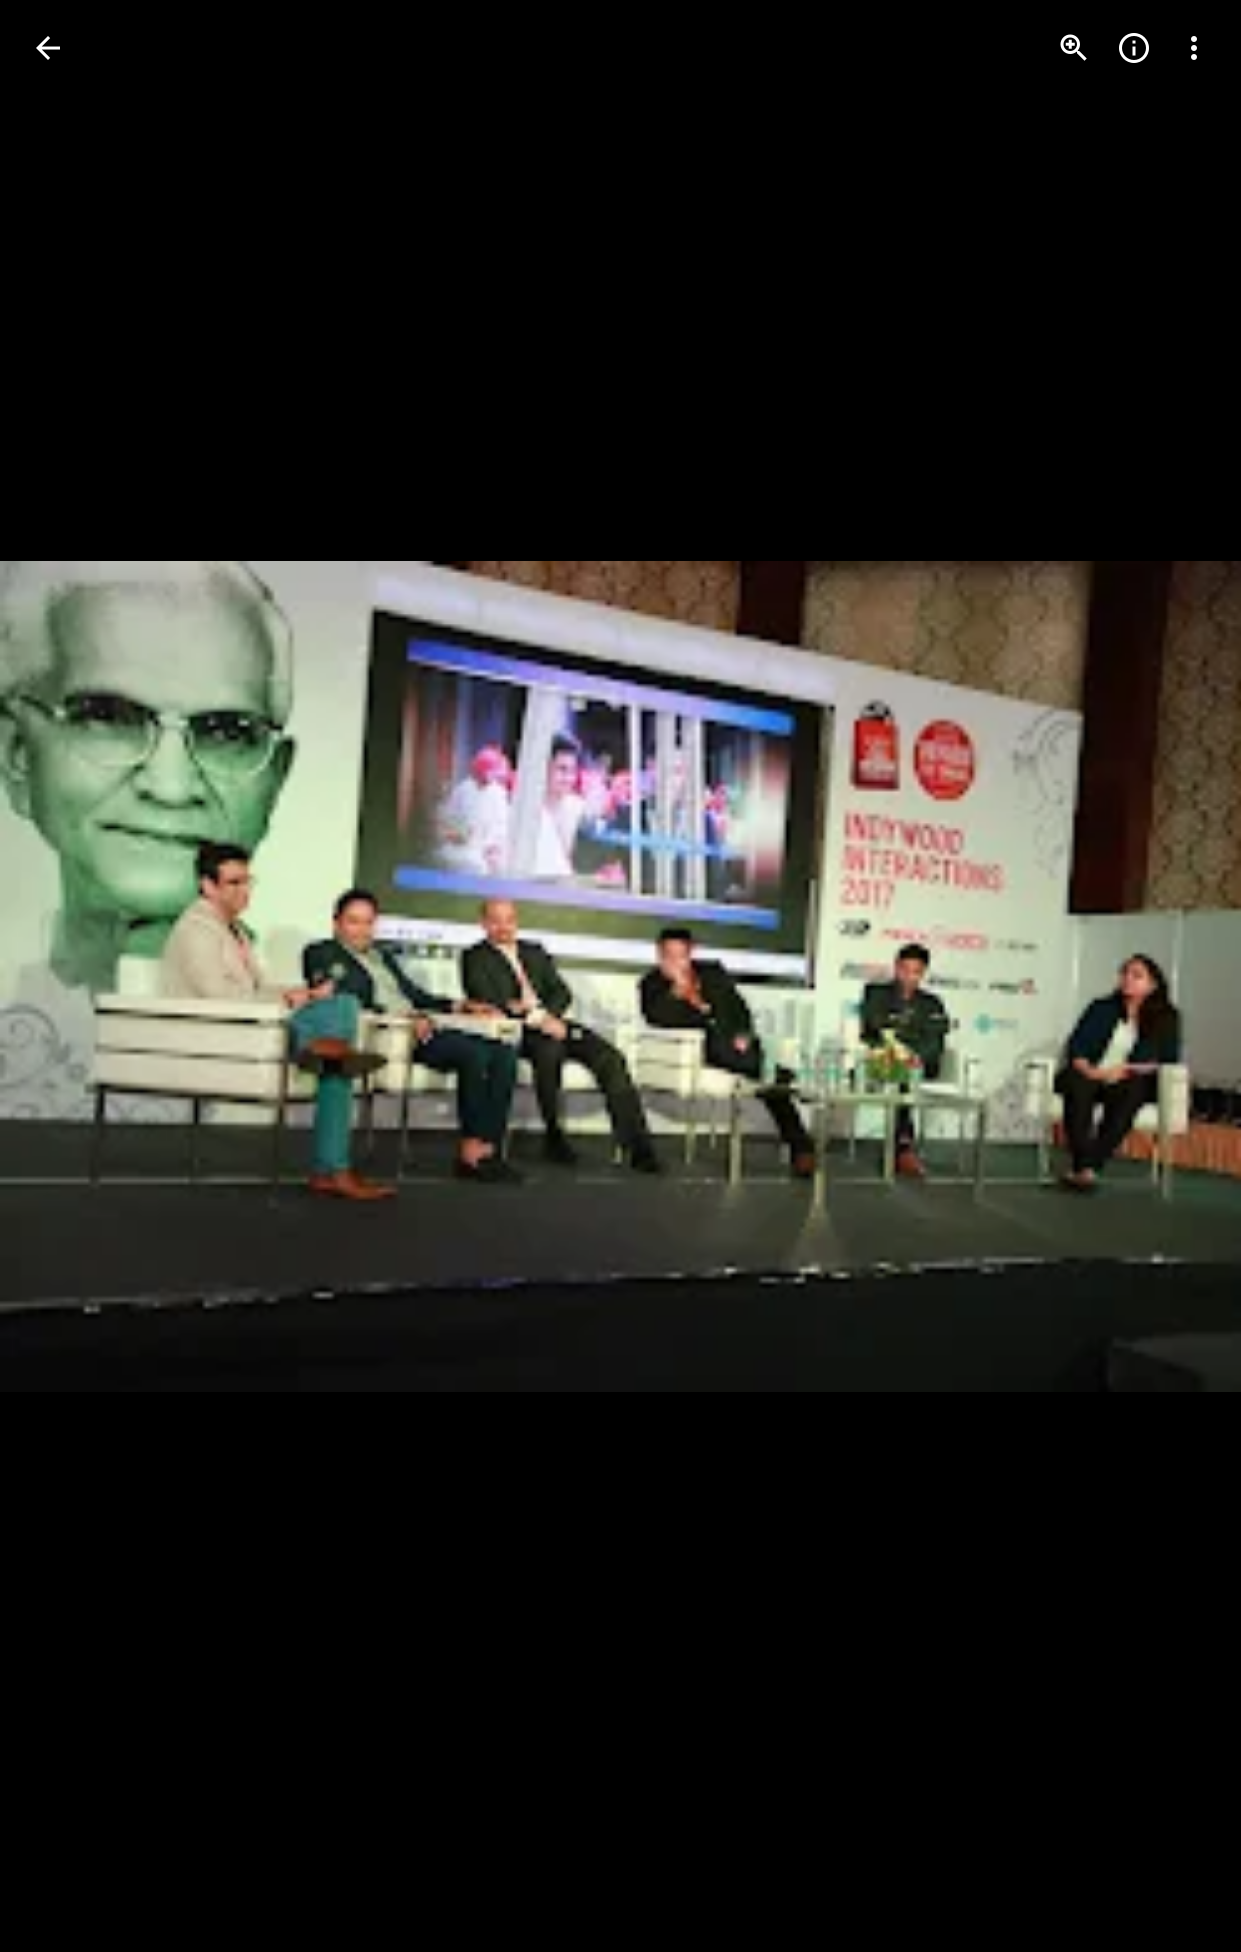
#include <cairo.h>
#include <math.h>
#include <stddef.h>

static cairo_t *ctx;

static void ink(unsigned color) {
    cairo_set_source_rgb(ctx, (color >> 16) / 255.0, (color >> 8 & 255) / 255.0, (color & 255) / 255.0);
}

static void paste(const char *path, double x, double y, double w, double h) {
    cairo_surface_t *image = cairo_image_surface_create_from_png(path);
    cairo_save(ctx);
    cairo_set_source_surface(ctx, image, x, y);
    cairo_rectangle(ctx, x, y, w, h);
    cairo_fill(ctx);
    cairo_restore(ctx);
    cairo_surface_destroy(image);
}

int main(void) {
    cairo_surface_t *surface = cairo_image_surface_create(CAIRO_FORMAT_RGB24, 1241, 1952);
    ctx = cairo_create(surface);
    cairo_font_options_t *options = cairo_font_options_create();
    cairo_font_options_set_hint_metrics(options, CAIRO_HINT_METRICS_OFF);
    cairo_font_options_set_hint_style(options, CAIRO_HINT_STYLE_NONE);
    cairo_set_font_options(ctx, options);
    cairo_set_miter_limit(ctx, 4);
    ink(0x000000);
    cairo_paint(ctx);
    paste("pic1.png", 36, 36, 24, 24);
    paste("pic2.png", 1060, 34, 27, 27);
    paste("pic3.png", 1119, 33, 30, 30);
    paste("pic4.png", 1191, 36, 6, 24);
    paste("pic5.png", 0, 561, 1241, 831);
    cairo_surface_write_to_png(surface, "screenshot.png");
    cairo_font_options_destroy(options);
    cairo_destroy(ctx);
    cairo_surface_destroy(surface);
    return 0;
}
